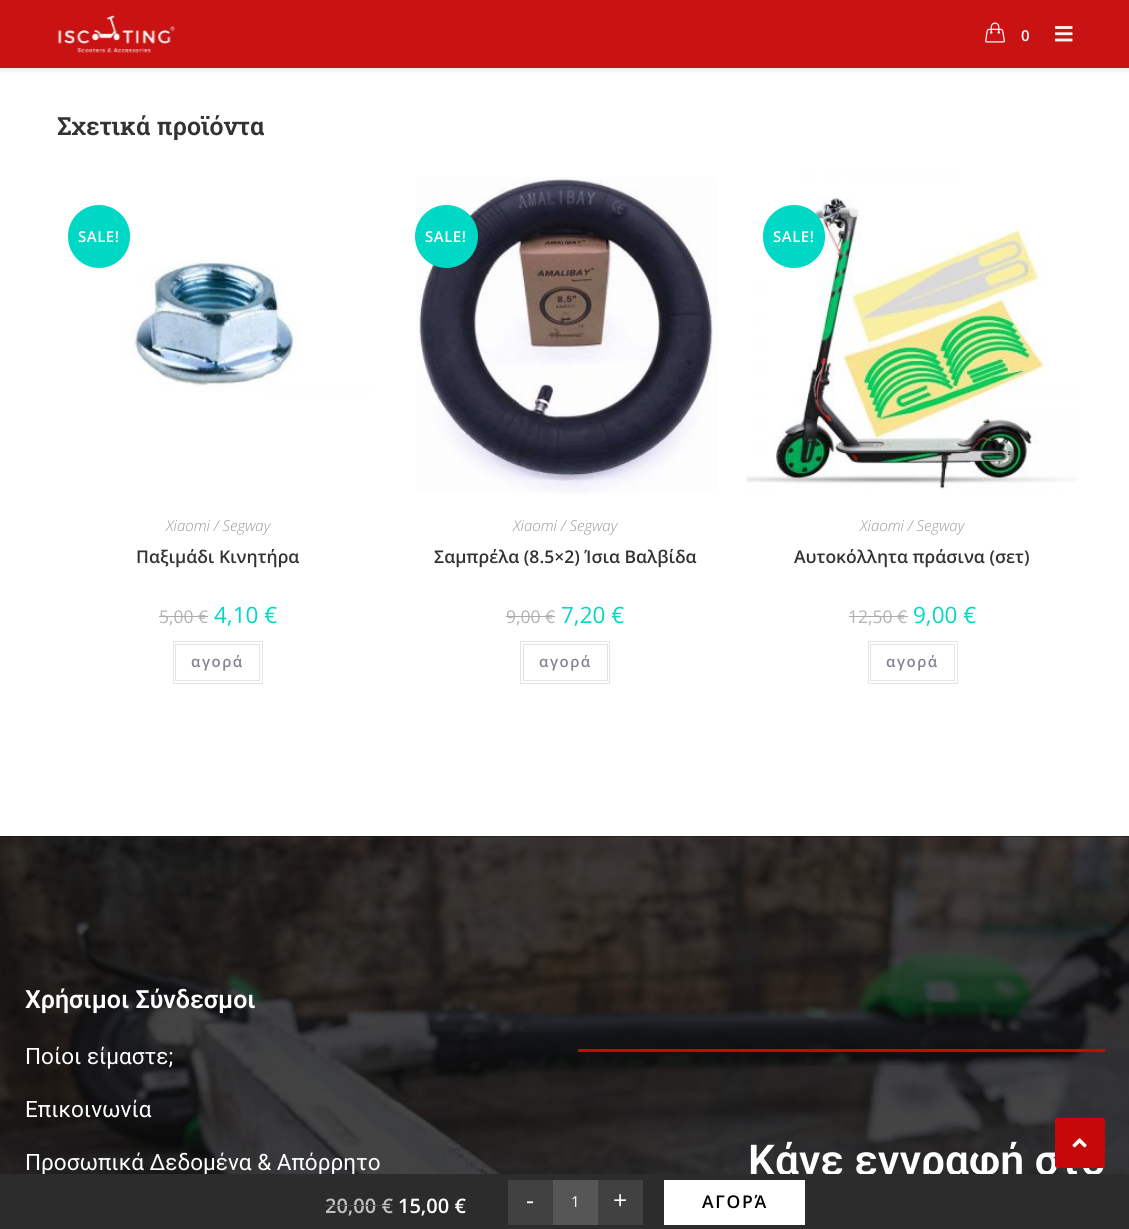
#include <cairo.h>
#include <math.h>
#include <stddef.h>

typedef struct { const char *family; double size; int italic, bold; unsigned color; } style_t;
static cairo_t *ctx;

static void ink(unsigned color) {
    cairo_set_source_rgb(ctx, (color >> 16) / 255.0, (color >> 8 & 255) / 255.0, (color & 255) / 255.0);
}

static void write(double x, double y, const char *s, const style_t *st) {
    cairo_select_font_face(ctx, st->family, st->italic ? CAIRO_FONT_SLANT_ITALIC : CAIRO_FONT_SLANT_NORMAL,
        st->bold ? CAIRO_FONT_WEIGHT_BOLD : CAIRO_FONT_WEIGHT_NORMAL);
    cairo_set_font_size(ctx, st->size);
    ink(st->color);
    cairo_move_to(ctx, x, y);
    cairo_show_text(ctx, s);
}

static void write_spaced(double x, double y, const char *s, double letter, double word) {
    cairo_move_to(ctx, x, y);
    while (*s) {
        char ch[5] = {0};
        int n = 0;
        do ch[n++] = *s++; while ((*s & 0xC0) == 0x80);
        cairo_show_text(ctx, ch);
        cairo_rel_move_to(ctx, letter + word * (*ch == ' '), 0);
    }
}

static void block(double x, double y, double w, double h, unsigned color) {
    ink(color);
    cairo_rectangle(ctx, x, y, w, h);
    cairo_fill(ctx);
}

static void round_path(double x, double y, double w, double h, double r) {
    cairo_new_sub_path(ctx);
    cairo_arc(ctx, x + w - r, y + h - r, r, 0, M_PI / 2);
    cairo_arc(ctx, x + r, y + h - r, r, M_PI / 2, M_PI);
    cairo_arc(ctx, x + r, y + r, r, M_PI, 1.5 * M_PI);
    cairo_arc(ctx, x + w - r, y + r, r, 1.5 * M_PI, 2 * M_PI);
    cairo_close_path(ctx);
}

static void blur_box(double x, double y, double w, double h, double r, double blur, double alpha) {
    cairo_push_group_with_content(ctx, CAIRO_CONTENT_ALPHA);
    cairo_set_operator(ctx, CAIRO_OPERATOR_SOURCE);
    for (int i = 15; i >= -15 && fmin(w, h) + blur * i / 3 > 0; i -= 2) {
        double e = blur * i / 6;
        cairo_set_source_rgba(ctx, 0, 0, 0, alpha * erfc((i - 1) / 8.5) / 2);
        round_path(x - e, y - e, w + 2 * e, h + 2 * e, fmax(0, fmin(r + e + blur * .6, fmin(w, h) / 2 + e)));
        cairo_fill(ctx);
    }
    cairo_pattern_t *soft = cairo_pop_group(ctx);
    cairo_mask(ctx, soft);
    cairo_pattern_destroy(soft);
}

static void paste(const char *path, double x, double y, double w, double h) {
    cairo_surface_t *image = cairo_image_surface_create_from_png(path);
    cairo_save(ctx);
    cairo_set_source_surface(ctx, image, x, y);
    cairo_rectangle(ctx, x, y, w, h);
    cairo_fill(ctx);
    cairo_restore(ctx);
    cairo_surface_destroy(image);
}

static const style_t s1 = {"Roboto Slab SemiBold", 25, 0, 0, 0x333333};
static const style_t s2 = {"Open Sans Light", 15, 1, 0, 0x999999};
static const style_t s3 = {"Open Sans SemiBold", 17.5, 0, 0, 0x333333};
static const style_t s4 = {"Open Sans", 17.5, 0, 0, 0xb3b3b3};
static const style_t s5 = {"Open Sans", 22.5, 0, 0, 0x00d8c6};
static const style_t s6 = {"Roboto SemiBold", 25, 0, 0, 0xffffff};
static const style_t s7 = {"Roboto", 22.5, 0, 0, 0xffffff};
static const style_t s8 = {"Roboto SemiBold", 42.5, 0, 0, 0xffffff};
static const style_t s9 = {"Open Sans SemiBold", 20, 0, 0, 0xc0c0c0};
static const style_t s10 = {"Open Sans SemiBold", 20, 0, 0, 0xffffff};
static const style_t s11 = {"Open Sans", 25, 0, 0, 0xffffff};
static const style_t s12 = {"Open Sans", 15, 0, 0, 0xffffff};

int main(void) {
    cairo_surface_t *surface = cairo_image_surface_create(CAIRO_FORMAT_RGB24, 1129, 1229);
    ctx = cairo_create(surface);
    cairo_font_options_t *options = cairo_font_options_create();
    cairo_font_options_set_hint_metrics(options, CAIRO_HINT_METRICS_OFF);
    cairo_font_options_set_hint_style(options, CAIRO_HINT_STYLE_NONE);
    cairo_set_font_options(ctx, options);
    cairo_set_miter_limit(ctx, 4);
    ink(0xffffff);
    cairo_paint(ctx);
    block(56, 19, 1018, 1, 0xe9e9e9);
    block(406, 0, 1, 19, 0xe9e9e9);
    block(583, 0, 1, 19, 0xe9e9e9);
    block(736, 0, 1, 19, 0xe9e9e9);
    cairo_save(ctx);
    cairo_set_fill_rule(ctx, CAIRO_FILL_RULE_EVEN_ODD);
    cairo_new_path(ctx);
    cairo_move_to(ctx, 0, 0);
    cairo_line_to(ctx, 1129, 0);
    cairo_line_to(ctx, 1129, 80);
    cairo_line_to(ctx, 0, 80);
    cairo_close_path(ctx);
    cairo_move_to(ctx, 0, 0);
    cairo_line_to(ctx, 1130, 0);
    cairo_line_to(ctx, 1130, 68);
    cairo_line_to(ctx, 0, 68);
    cairo_close_path(ctx);
    cairo_clip(ctx);
    ink(0x0d0d0d);
    blur_box(0, 3, 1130, 67, 0, 3, 0.1);
    cairo_restore(ctx);
    cairo_set_source_rgba(ctx, 0.78, 0.031, 0.031, 0.95);
    cairo_rectangle(ctx, 0, 0, 1129, 68);
    cairo_fill(ctx);
    paste("pic1.png", 57, 15, 118, 38);
    paste("pic2.png", 985, 22, 20, 21);
    cairo_select_font_face(ctx, "Open Sans SemiBold", CAIRO_FONT_SLANT_NORMAL, CAIRO_FONT_WEIGHT_NORMAL);
    cairo_set_font_size(ctx, 15);
    ink(0xffffff);
    write_spaced(1021, 41, "0", 1, 0);
    paste("pic3.png", 1055, 26, 18, 16);
    write(57, 135, "Σχετικά προϊόντα", &s1);
    paste("pic4.png", 87, 259, 283, 135);
    ink(0x00d8c6);
    round_path(68, 205, 62, 63, 31);
    cairo_fill(ctx);
    cairo_select_font_face(ctx, "Open Sans SemiBold", CAIRO_FONT_SLANT_NORMAL, CAIRO_FONT_WEIGHT_NORMAL);
    cairo_set_font_size(ctx, 15);
    ink(0xffffff);
    write_spaced(78, 242, "SALE!", 0.5, 0);
    write(166, 531, "Xiaomi / Segway", &s2);
    write(136, 563, "Παξιμάδι Κινητήρα", &s3);
    write(159, 623, "5,00 €", &s4);
    block(159, 616, 49, 1, 0xaaaaaa);
    write(214, 623, "4,10 €", &s5);
    cairo_rectangle(ctx, 173.5, 641.5, 89, 42);
    ink(0xe4e4e4);
    cairo_set_line_width(ctx, 1);
    cairo_stroke(ctx);
    cairo_rectangle(ctx, 175.5, 644.5, 84, 36);
    cairo_stroke(ctx);
    cairo_select_font_face(ctx, "Open Sans SemiBold", CAIRO_FONT_SLANT_NORMAL, CAIRO_FONT_WEIGHT_NORMAL);
    cairo_set_font_size(ctx, 15);
    ink(0x848494);
    write_spaced(191, 667, "αγορά", 1.5, 0);
    paste("pic5.png", 416, 177, 302, 317);
    ink(0x00d8c6);
    cairo_arc(ctx, 446.5, 236.5, 31.5, 0, 2 * M_PI);
    cairo_fill(ctx);
    ink(0xffffff);
    write_spaced(425, 242, "SALE!", 0.5, 0);
    write(513, 531, "Xiaomi / Segway", &s2);
    write(434, 563, "Σαμπρέλα (8.5×2) Ίσια Βαλβίδα", &s3);
    write(506, 623, "9,00 €", &s4);
    block(506, 616, 49, 1, 0xaaaaaa);
    write(561, 623, "7,20 €", &s5);
    cairo_rectangle(ctx, 520.5, 641.5, 89, 42);
    ink(0xe4e4e4);
    cairo_stroke(ctx);
    cairo_rectangle(ctx, 523.5, 644.5, 84, 36);
    cairo_stroke(ctx);
    cairo_select_font_face(ctx, "Open Sans SemiBold", CAIRO_FONT_SLANT_NORMAL, CAIRO_FONT_WEIGHT_NORMAL);
    cairo_set_font_size(ctx, 15);
    ink(0x848494);
    write_spaced(539, 667, "αγορά", 1.5, 0);
    paste("pic6.png", 803, 161, 272, 1);
    paste("pic7.png", 746, 162, 331, 328);
    ink(0x00d8c6);
    round_path(763, 205, 62, 63, 31);
    cairo_fill(ctx);
    ink(0xffffff);
    write_spaced(773, 242, "SALE!", 0.5, 0);
    write(860, 531, "Xiaomi / Segway", &s2);
    write(794, 563, "Αυτοκόλλητα πράσινα (σετ)", &s3);
    write(848, 623, "12,50", &s4);
    block(849, 616, 49, 1, 0xaaaaaa);
    write(897, 623, "€", &s4);
    block(898, 616, 10, 1, 0xaaaaaa);
    write(913, 623, "9,00 €", &s5);
    cairo_rectangle(ctx, 868.5, 641.5, 89, 42);
    ink(0xe4e4e4);
    cairo_stroke(ctx);
    cairo_rectangle(ctx, 870.5, 644.5, 84, 36);
    cairo_stroke(ctx);
    cairo_select_font_face(ctx, "Open Sans SemiBold", CAIRO_FONT_SLANT_NORMAL, CAIRO_FONT_WEIGHT_NORMAL);
    cairo_set_font_size(ctx, 15);
    ink(0x848494);
    write_spaced(886, 667, "αγορά", 1.5, 0);
    block(0, 836, 1129, 1, 0x111111);
    paste("pic8.png", 0, 836, 1129, 338);
    write(25, 1008, "Χρήσιμοι Σύνδεσμοι", &s6);
    write(25, 1064, "Ποίοι είμαστε;", &s7);
    write(25, 1117, "Επικοινωνία", &s7);
    write(25, 1170, "Προσωπικά Δεδομένα & Απόρρητο", &s7);
    block(578, 1049, 527, 3, 0xc70808);
    write(748, 1175, "Κάνε εγγραφή στο", &s8);
    block(0, 1174, 1129, 55, 0x2c2c2c);
    write(325, 1213, "20,00 €", &s9);
    block(325, 1205, 68, 1, 0x494949);
    write(398, 1213, "15,00 €", &s10);
    block(508, 1180, 45, 45, 0x414141);
    write(526, 1209, "-", &s11);
    block(553, 1180, 45, 45, 0x565656);
    write(571, 1207, "1", &s12);
    block(598, 1180, 45, 45, 0x414141);
    write(613, 1209, "+", &s11);
    block(664, 1180, 141, 45, 0xffffff);
    cairo_select_font_face(ctx, "Open Sans SemiBold", CAIRO_FONT_SLANT_NORMAL, CAIRO_FONT_WEIGHT_NORMAL);
    cairo_set_font_size(ctx, 17.5);
    ink(0x000000);
    write_spaced(702, 1208, "ΑΓΟΡΆ", 1.75, 0);
    ink(0xc70808);
    round_path(1055, 1118, 50, 50, 2.5);
    cairo_fill(ctx);
    paste("pic9.png", 1072, 1138, 15, 10);
    cairo_surface_write_to_png(surface, "screenshot.png");
    cairo_font_options_destroy(options);
    cairo_destroy(ctx);
    cairo_surface_destroy(surface);
    return 0;
}
